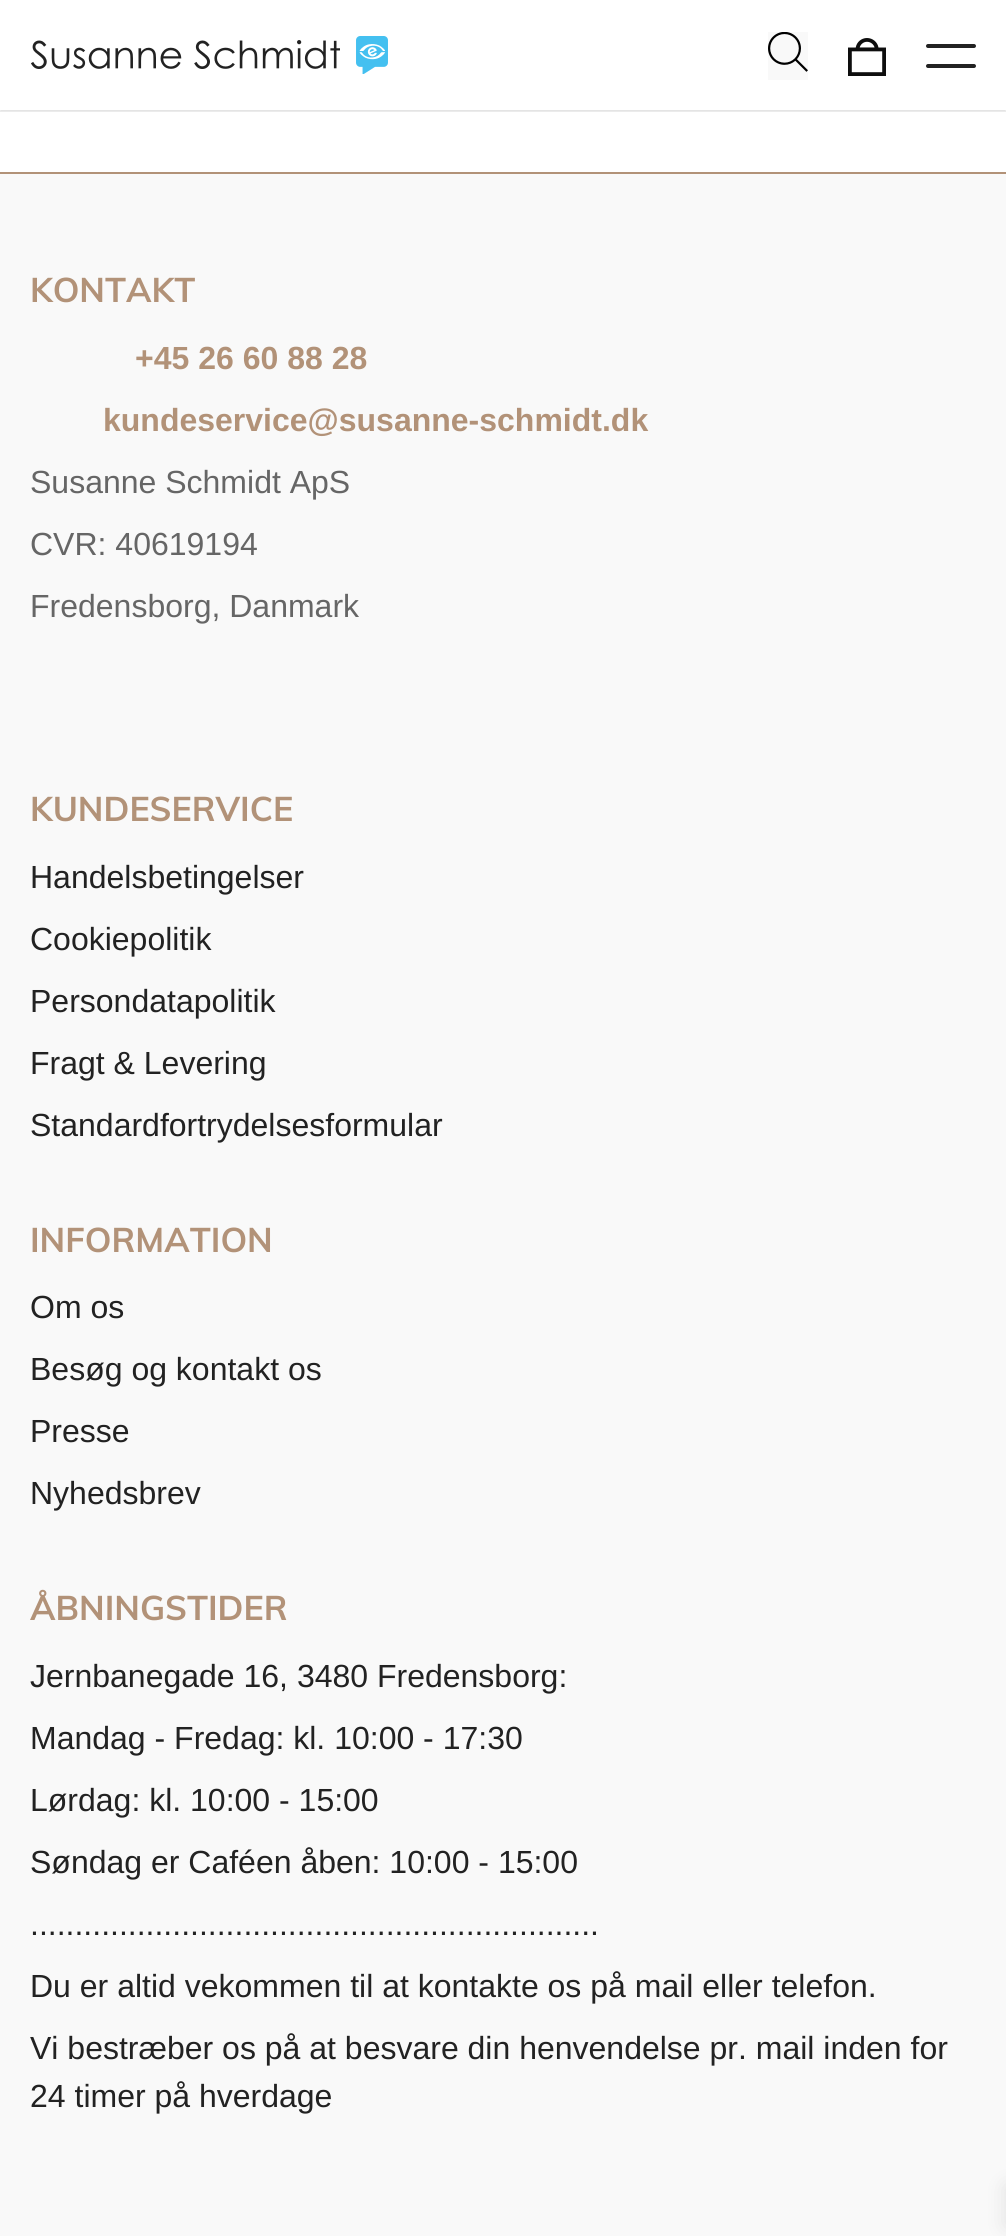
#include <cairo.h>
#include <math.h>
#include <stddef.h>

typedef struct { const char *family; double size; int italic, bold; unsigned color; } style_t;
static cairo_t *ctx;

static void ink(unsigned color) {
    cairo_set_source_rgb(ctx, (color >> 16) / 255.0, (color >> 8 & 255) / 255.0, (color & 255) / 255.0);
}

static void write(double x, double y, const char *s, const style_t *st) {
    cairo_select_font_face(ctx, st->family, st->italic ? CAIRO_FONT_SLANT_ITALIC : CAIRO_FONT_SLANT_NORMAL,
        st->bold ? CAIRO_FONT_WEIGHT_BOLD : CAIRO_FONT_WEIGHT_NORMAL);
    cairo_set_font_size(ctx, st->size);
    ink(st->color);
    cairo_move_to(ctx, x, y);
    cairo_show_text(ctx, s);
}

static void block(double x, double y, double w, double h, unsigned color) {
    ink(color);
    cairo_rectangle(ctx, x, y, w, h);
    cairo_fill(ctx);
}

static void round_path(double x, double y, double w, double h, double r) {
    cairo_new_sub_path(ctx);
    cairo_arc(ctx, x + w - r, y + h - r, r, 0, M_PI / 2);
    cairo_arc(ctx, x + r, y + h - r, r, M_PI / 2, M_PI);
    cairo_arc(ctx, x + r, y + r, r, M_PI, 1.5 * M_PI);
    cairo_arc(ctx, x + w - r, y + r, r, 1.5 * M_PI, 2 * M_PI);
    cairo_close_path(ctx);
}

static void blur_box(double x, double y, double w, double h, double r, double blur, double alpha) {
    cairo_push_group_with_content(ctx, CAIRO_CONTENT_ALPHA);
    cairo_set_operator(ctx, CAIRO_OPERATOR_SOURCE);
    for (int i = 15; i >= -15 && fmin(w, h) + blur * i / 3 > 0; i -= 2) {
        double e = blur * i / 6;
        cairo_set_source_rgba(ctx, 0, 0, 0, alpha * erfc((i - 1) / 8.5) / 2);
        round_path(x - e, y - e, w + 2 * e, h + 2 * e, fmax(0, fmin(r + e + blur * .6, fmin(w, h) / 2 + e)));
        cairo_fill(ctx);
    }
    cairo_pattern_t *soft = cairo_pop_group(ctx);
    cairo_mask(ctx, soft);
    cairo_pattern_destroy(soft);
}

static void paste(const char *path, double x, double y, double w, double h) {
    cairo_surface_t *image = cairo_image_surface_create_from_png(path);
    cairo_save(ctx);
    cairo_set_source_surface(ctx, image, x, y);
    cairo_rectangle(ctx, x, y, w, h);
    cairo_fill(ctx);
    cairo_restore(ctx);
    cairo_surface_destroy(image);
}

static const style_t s1 = {"Muli", 34, 0, 1, 0xb29278};
static const style_t s2 = {"Liberation Sans", 32, 0, 1, 0xb29278};
static const style_t s3 = {"Liberation Sans", 32, 0, 0, 0x666666};
static const style_t s4 = {"Liberation Sans", 32, 0, 0, 0x222222};

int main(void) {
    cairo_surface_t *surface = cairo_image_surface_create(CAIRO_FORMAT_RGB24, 1006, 2236);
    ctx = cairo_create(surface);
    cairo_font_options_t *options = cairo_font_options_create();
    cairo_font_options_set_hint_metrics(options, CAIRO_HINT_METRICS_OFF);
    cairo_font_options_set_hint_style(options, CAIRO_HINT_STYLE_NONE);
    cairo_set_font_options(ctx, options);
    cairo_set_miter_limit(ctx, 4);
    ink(0xffffff);
    cairo_paint(ctx);
    cairo_save(ctx);
    cairo_rectangle(ctx, 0, 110, 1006, 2);
    cairo_clip(ctx);
    ink(0x000000);
    blur_box(0, 2, 1006, 110, 0, 1, 0.06);
    blur_box(0, 2, 1006, 110, 0, 1, 0.06);
    cairo_restore(ctx);
    paste("pic1.png", 31, 40, 309, 29);
    paste("pic2.png", 356, 36, 32, 38);
    block(768, 32, 40, 48, 0xf9f9f9);
    paste("pic3.png", 768, 32, 40, 40);
    paste("pic4.png", 848, 38, 38, 38);
    ink(0x222222);
    round_path(926, 44, 50, 4, 2);
    cairo_fill(ctx);
    round_path(926, 64, 50, 4, 2);
    cairo_fill(ctx);
    block(0, 174, 1006, 2062, 0xf9f9f9);
    block(0, 172, 1006, 2, 0xb29278);
    write(30, 302, "KONTAKT", &s1);
    write(135, 369, "+45 26 60 88 28", &s2);
    write(103, 431, "kundeservice@susanne-schmidt.dk", &s2);
    write(30, 493, "Susanne Schmidt ApS", &s3);
    write(30, 555, "CVR: 40619194", &s3);
    write(30, 617, "Fredensborg, Danmark", &s3);
    write(30, 821, "KUNDESERVICE", &s1);
    write(30, 888, "Handelsbetingelser", &s4);
    write(30, 950, "Cookiepolitik", &s4);
    write(30, 1012, "Persondatapolitik", &s4);
    write(30, 1074, "Fragt & Levering", &s4);
    write(30, 1136, "Standardfortrydelsesformular", &s4);
    write(30, 1252, "INFORMATION", &s1);
    write(30, 1318, "Om os", &s4);
    write(30, 1380, "Besøg og kontakt os", &s4);
    write(30, 1442, "Presse", &s4);
    write(30, 1504, "Nyhedsbrev", &s4);
    write(30, 1620, "ÅBNINGSTIDER", &s1);
    write(30, 1687, "Jernbanegade 16, 3480 Fredensborg:", &s4);
    write(30, 1749, "Mandag - Fredag: kl. 10:00 - 17:30", &s4);
    write(30, 1811, "Lørdag: kl. 10:00 - 15:00", &s4);
    write(30, 1873, "Søndag er Caféen åben: 10:00 - 15:00", &s4);
    write(30, 1935, "................................................................", &s4);
    write(30, 1997, "Du er altid vekommen til at kontakte os på mail eller telefon.", &s4);
    write(30, 2059, "Vi bestræber os på at besvare din henvendelse pr. mail inden for", &s4);
    write(30, 2107, "24 timer på hverdage", &s4);
    ink(0x000000);
    blur_box(1006, 2186, 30, 40, 0, 10, 0.1);
    cairo_surface_write_to_png(surface, "screenshot.png");
    cairo_font_options_destroy(options);
    cairo_destroy(ctx);
    cairo_surface_destroy(surface);
    return 0;
}
